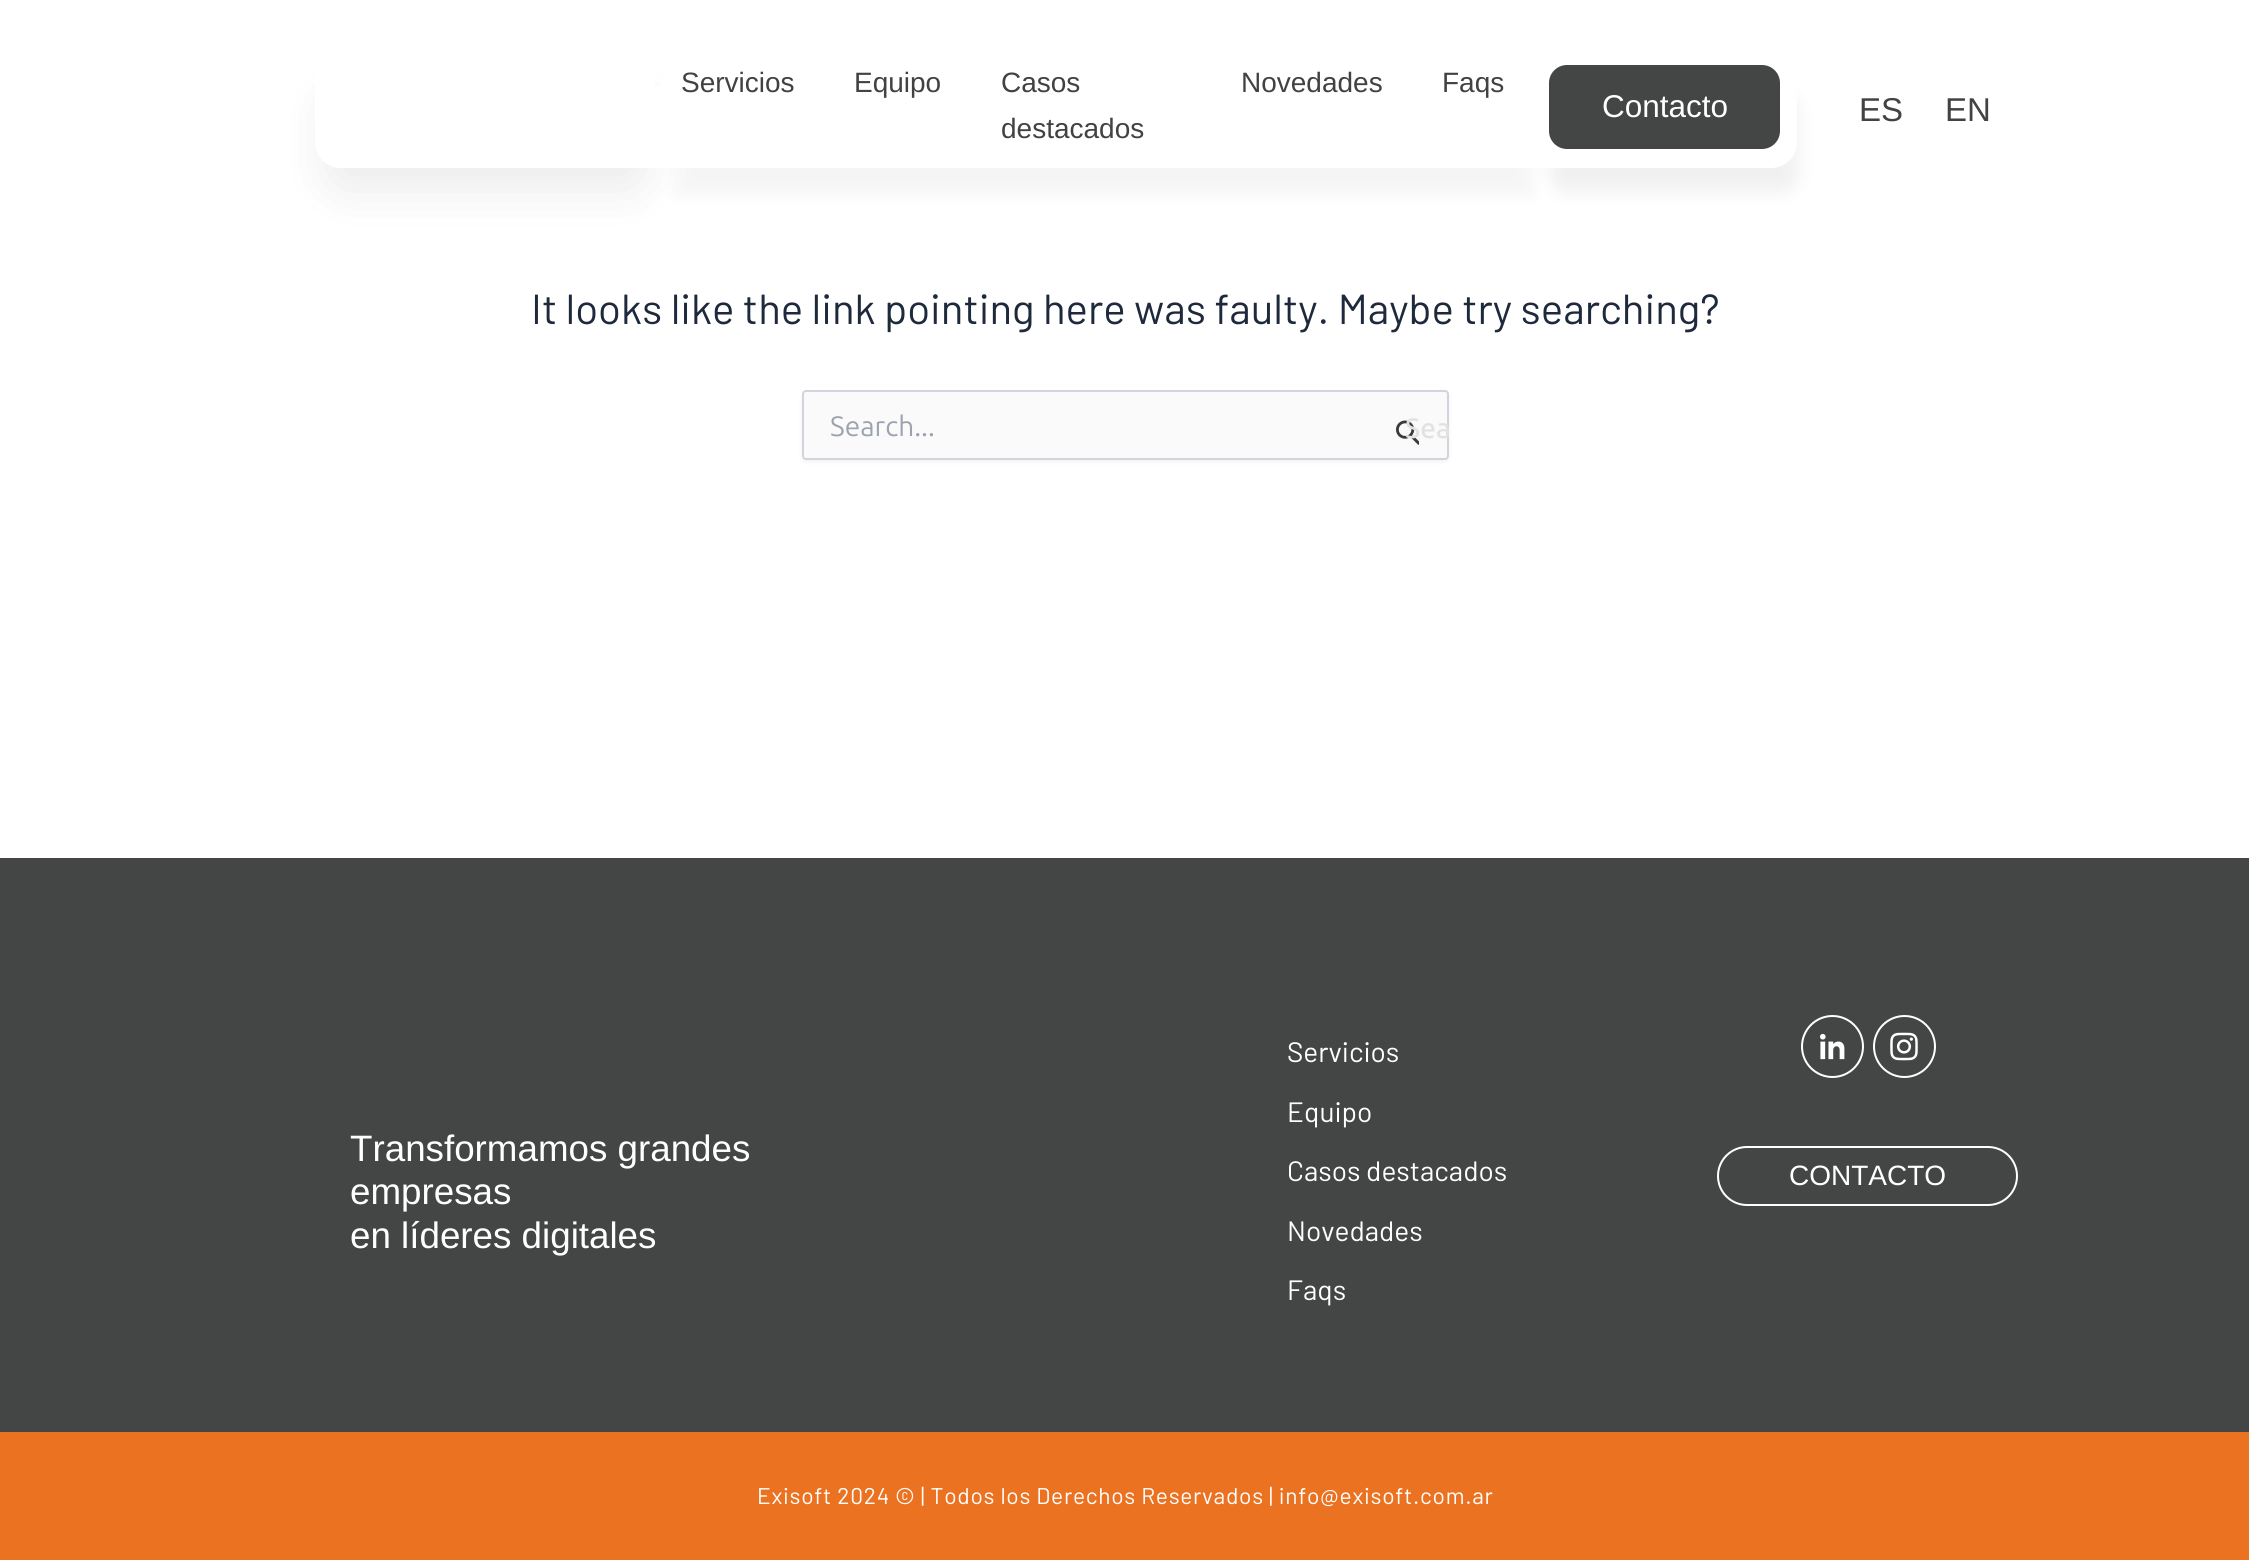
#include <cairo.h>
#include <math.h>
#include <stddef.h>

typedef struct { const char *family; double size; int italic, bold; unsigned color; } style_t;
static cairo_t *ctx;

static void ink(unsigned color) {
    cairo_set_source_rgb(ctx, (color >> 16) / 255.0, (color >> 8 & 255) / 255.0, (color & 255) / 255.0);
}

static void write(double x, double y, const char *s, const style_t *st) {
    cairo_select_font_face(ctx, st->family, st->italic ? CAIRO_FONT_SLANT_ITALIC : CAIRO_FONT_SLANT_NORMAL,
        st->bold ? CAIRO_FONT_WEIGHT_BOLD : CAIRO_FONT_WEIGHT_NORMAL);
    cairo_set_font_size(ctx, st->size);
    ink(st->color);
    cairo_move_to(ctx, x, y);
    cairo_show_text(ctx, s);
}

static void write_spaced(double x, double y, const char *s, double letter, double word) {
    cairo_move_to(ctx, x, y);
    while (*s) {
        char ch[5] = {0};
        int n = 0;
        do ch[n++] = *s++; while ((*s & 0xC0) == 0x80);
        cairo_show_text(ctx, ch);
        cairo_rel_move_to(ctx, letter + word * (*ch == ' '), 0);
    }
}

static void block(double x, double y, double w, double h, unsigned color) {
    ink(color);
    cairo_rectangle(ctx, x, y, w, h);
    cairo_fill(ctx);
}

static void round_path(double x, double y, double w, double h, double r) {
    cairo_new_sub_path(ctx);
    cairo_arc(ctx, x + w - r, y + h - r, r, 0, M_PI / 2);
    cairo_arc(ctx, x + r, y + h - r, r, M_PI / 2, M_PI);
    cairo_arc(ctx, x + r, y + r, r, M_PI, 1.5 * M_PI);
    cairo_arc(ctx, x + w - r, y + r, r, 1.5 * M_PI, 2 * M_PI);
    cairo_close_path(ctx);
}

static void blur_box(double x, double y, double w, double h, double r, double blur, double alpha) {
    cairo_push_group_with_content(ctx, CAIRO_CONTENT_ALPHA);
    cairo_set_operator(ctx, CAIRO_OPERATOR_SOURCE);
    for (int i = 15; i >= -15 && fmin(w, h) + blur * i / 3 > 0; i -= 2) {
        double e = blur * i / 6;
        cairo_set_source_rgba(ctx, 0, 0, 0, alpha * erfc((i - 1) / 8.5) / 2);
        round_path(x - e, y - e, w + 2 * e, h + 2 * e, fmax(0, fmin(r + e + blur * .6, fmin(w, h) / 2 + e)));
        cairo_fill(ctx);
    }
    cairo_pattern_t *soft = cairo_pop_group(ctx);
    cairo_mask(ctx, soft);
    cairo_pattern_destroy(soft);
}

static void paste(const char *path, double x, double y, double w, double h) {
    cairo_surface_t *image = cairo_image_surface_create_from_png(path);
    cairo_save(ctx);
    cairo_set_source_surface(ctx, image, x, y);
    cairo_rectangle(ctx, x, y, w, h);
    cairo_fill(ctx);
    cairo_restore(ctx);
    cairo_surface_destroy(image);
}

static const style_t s1 = {"Liberation Sans", 28, 0, 0, 0x424243};
static const style_t s2 = {"Liberation Sans", 31.5, 0, 0, 0xffffff};
static const style_t s3 = {"Liberation Sans", 33, 0, 0, 0x424243};
static const style_t s4 = {"Barlow", 42, 0, 0, 0x1e293b};
static const style_t s5 = {"Ubuntu", 28, 0, 0, 0x9ca3af};
static const style_t s6 = {"Ubuntu Medium", 28, 0, 0, 0xe1e2e2};
static const style_t s7 = {"Liberation Sans", 36.75, 0, 0, 0xffffff};
static const style_t s8 = {"Barlow", 28, 0, 0, 0xffffff};
static const style_t s9 = {"Liberation Sans", 28, 0, 0, 0xffffff};

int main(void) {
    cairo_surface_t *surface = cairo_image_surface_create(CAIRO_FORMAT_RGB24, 2249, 1560);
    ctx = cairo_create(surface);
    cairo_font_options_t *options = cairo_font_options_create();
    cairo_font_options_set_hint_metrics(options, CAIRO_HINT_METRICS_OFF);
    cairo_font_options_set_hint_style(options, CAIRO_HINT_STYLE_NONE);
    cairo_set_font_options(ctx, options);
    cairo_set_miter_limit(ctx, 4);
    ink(0xffffff);
    cairo_paint(ctx);
    ink(0x000000);
    blur_box(327, 93, 319, 96, 16, 24.5, 0.08);
    ink(0xffffff);
    cairo_new_path(ctx);
    cairo_move_to(ctx, 341, 51);
    cairo_line_to(ctx, 655, 51);
    cairo_line_to(ctx, 655, 168);
    cairo_line_to(ctx, 341, 168);
    cairo_curve_to(ctx, 326.5, 168, 315, 156.5, 315, 142);
    cairo_line_to(ctx, 315, 77);
    cairo_curve_to(ctx, 315, 62.5, 326.5, 51, 341, 51);
    cairo_close_path(ctx);
    cairo_fill(ctx);
    ink(0x000000);
    blur_box(676, 96, 857, 100, 0, 9, 0.04);
    block(655, 86, 875, 82, 0xffffff);
    write(681, 92, "Servicios", &s1);
    write(854, 92, "Equipo", &s1);
    write(1001, 92, "Casos", &s1);
    write(1001, 138, "destacados", &s1);
    write(1241, 92, "Novedades", &s1);
    write(1442, 92, "Faqs", &s1);
    ink(0x000000);
    blur_box(1549, 93, 250, 100, 18, 9, 0.06);
    ink(0xffffff);
    cairo_new_path(ctx);
    cairo_move_to(ctx, 1530, 51);
    cairo_line_to(ctx, 1771, 51);
    cairo_curve_to(ctx, 1785.5, 51, 1797, 62.5, 1797, 77);
    cairo_line_to(ctx, 1797, 142);
    cairo_curve_to(ctx, 1797, 156.5, 1785.5, 168, 1771, 168);
    cairo_line_to(ctx, 1530, 168);
    cairo_close_path(ctx);
    cairo_fill(ctx);
    ink(0x444645);
    round_path(1549, 65, 231, 84, 18);
    cairo_fill(ctx);
    write(1602, 117, "Contacto", &s2);
    write(1859, 121, "ES", &s3);
    write(1945, 121, "EN", &s3);
    write(531, 324, "It looks like the link pointing here was faulty. Maybe try searching?", &s4);
    ink(0x000000);
    blur_box(802, 392, 647, 70, 4, 2, 0.05);
    ink(0xfafafa);
    round_path(803, 391, 645, 68, 3);
    cairo_fill_preserve(ctx);
    ink(0xd1d5db);
    cairo_stroke(ctx);
    write(830, 436, "Search...", &s5);
    paste("pic1.png", 1396, 420, 23, 25);
    write(1405, 438, "Sea", &s6);
    block(0, 858, 2249, 574, 0x444645);
    write(350, 1161, "Transformamos grandes", &s7);
    write(350, 1204, "empresas", &s7);
    write(350, 1248, "en líderes digitales", &s7);
    write(1287, 1062, "Servicios", &s8);
    write(1287, 1122, "Equipo", &s8);
    write(1287, 1181, "Casos destacados", &s8);
    write(1287, 1241, "Novedades", &s8);
    write(1287, 1300, "Faqs", &s8);
    cairo_new_path(ctx);
    cairo_arc(ctx, 1832.5, 1046.5, 30.5, 0, 2 * M_PI);
    cairo_stroke(ctx);
    paste("pic2.png", 1820, 1033, 25, 27);
    cairo_arc(ctx, 1904.5, 1046.5, 30.5, 0, 2 * M_PI);
    cairo_stroke(ctx);
    paste("pic3.png", 1890, 1032, 28, 29);
    round_path(1718, 1147, 299, 58, 29);
    cairo_stroke(ctx);
    write(1789, 1185, "CONTACTO", &s9);
    block(0, 1432, 2249, 128, 0xeb7221);
    cairo_select_font_face(ctx, "Barlow", CAIRO_FONT_SLANT_NORMAL, CAIRO_FONT_WEIGHT_NORMAL);
    cairo_set_font_size(ctx, 22.75);
    ink(0xffffff);
    write_spaced(757, 1504, "Exisoft 2024 © | Todos los Derechos Reservados | info@exisoft.com.ar", 0.7, 0);
    cairo_surface_write_to_png(surface, "screenshot.png");
    cairo_font_options_destroy(options);
    cairo_destroy(ctx);
    cairo_surface_destroy(surface);
    return 0;
}
